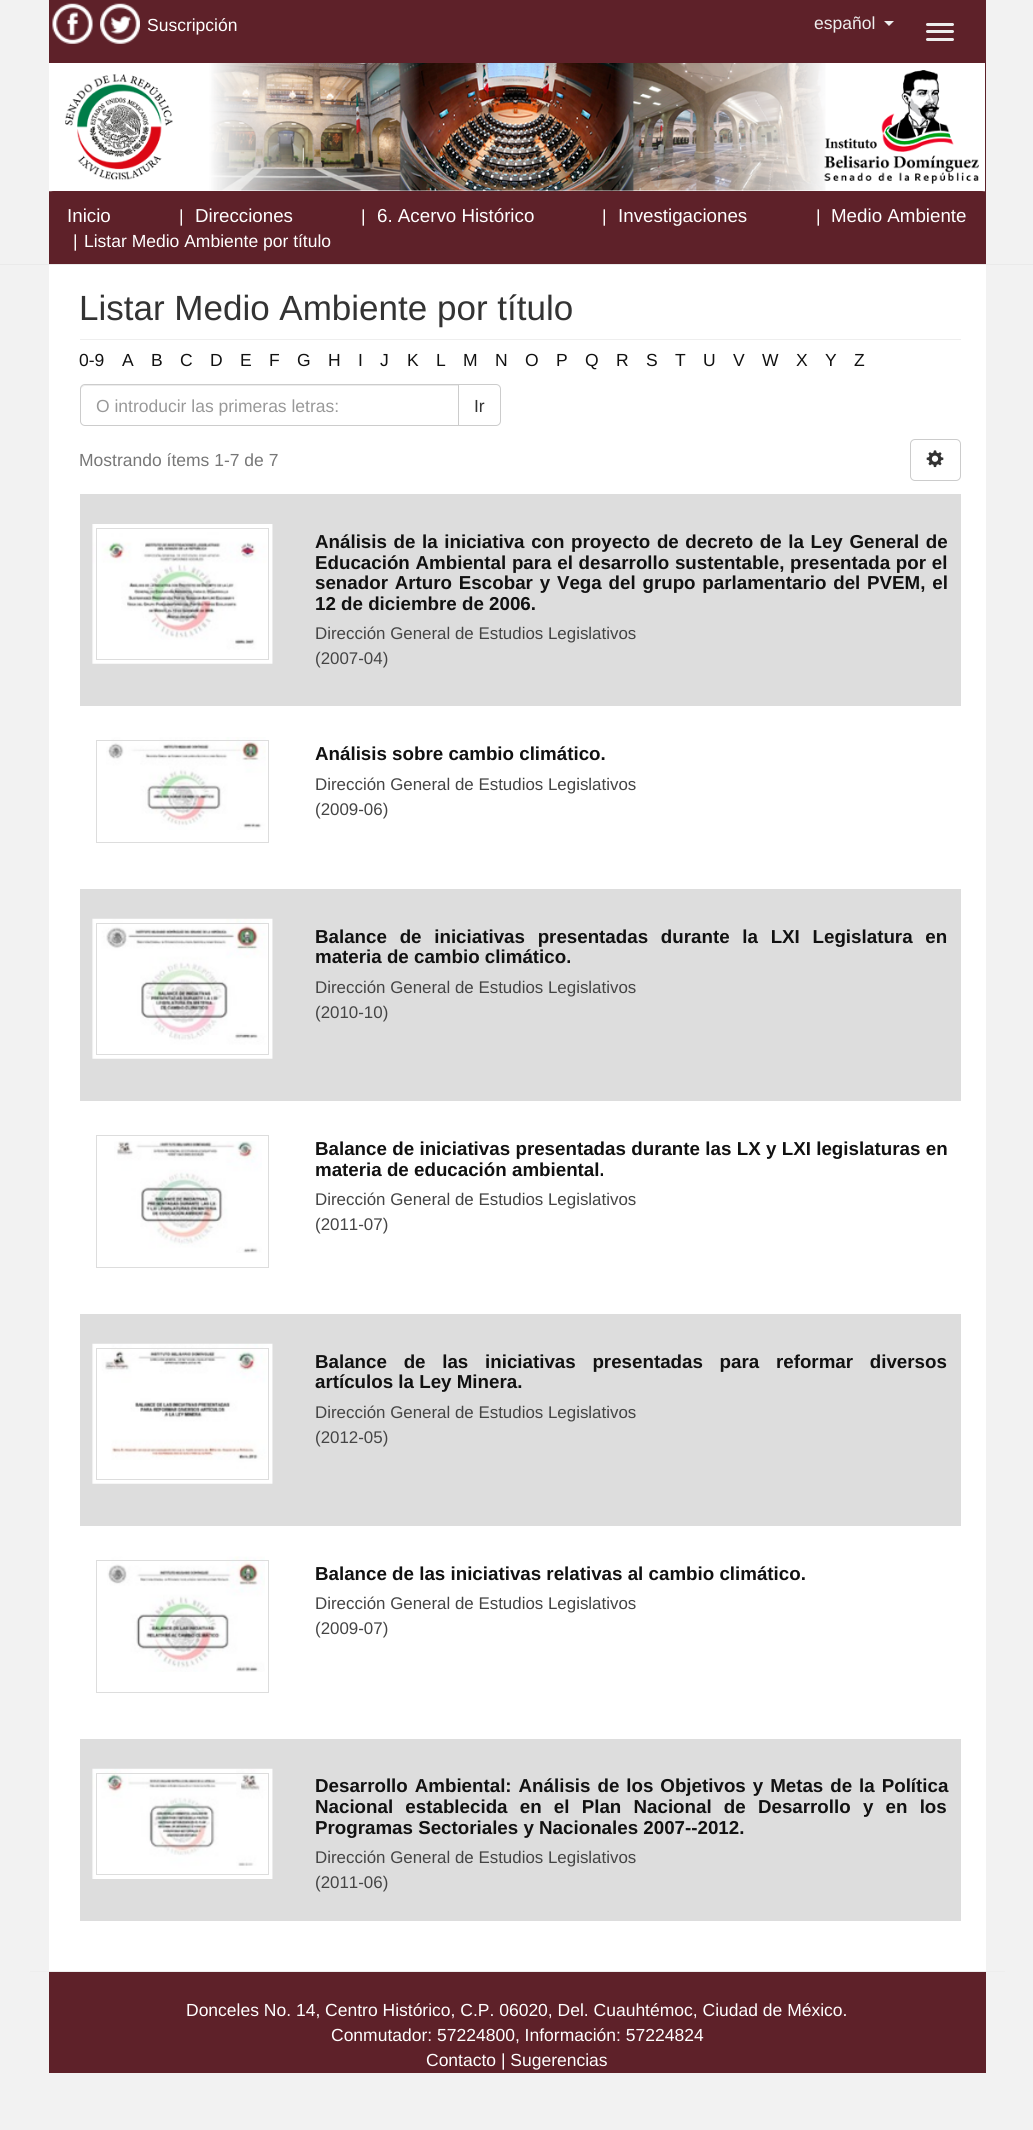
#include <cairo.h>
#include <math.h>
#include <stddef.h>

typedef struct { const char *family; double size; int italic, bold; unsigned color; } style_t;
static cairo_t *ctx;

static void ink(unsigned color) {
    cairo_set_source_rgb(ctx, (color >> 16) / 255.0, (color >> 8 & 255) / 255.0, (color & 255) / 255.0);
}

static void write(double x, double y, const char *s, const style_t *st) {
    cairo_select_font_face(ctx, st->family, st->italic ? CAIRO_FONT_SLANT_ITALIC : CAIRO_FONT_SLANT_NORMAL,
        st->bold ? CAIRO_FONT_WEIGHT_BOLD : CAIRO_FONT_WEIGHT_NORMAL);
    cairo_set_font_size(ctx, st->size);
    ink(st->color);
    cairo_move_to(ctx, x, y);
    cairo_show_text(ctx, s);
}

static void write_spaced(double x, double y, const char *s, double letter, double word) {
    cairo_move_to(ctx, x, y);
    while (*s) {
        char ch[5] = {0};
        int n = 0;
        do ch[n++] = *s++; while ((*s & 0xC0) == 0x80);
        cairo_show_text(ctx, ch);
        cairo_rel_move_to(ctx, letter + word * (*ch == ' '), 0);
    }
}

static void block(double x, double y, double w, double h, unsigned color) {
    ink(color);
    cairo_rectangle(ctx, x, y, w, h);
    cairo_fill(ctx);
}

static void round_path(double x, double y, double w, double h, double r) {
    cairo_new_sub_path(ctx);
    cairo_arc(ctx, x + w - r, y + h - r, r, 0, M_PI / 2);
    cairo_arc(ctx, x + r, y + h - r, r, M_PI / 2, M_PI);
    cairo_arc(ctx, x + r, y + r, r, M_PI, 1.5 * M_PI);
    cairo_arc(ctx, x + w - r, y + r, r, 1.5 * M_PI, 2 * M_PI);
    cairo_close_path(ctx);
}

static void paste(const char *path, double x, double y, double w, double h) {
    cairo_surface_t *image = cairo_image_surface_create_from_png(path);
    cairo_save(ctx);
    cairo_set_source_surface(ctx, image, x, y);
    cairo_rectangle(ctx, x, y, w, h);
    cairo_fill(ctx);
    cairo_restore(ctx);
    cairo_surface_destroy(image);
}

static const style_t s1 = {"Liberation Sans", 17.5, 0, 0, 0xffffff};
static const style_t s2 = {"Liberation Sans", 17.5, 0, 0, 0xeeeeee};
static const style_t s3 = {"Liberation Sans", 18.75, 0, 0, 0xffffff};
static const style_t s4 = {"Liberation Sans", 35, 0, 0, 0x333333};
static const style_t s5 = {"Liberation Sans", 17.5, 0, 0, 0x111111};
static const style_t s6 = {"Liberation Sans", 17.5, 0, 0, 0x999999};
static const style_t s7 = {"Liberation Sans", 17.5, 0, 0, 0x333333};
static const style_t s8 = {"Liberation Sans", 17.5, 0, 0, 0x777777};
static const style_t s9 = {"Liberation Sans", 18.75, 0, 1, 0x111111};
static const style_t s10 = {"Liberation Sans", 16.9, 0, 0, 0x444444};

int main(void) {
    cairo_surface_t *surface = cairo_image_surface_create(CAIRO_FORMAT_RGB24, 1033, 2130);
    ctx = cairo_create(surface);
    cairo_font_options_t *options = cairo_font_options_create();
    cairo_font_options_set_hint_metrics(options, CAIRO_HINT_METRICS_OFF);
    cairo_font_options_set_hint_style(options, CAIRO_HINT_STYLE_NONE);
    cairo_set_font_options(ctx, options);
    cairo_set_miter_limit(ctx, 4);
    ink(0xf2f2f2);
    cairo_paint(ctx);
    block(49, 0, 937, 63, 0x5e2129);
    paste("pic1.png", 52, 3, 41, 41);
    paste("pic2.png", 100, 3, 40, 41);
    write(147, 31, "Suscripción", &s1);
    write(814, 29, "español", &s2);
    cairo_new_path(ctx);
    cairo_move_to(ctx, 884, 21);
    cairo_line_to(ctx, 894, 21);
    cairo_line_to(ctx, 889, 26);
    cairo_close_path(ctx);
    cairo_fill(ctx);
    round_path(926, 23, 28, 3, 1.5);
    cairo_fill(ctx);
    round_path(926, 30, 28, 3, 1.5);
    cairo_fill(ctx);
    round_path(926, 38, 28, 3, 1.5);
    cairo_fill(ctx);
    block(985, 63, 1, 128, 0x5e2129);
    block(49, 191, 937, 73, 0x5e2129);
    paste("pic3.png", 49, 63, 936, 129);
    block(0, 264, 1033, 1, 0xeaeaea);
    ink(0x5e2129);
    round_path(49, 191, 937, 73, 5);
    cairo_fill(ctx);
    write(67, 222, "Inicio", &s3);
    write(179, 222, "|", &s1);
    write(195, 222, "Direcciones", &s3);
    write(361, 222, "|", &s1);
    write(377, 222, "6. Acervo Histórico", &s3);
    write(602, 222, "|", &s1);
    write(618, 222, "Investigaciones", &s3);
    write(816, 222, "|", &s1);
    write(831, 222, "Medio Ambiente", &s3);
    write(73, 247, "|", &s1);
    write(84, 247, "Listar Medio Ambiente por título", &s1);
    block(49, 265, 937, 1706, 0xffffff);
    block(80, 339, 881, 1, 0xeeeeee);
    write(79, 320, "Listar Medio Ambiente por título", &s4);
    write(79, 366, "0-9", &s5);
    write(122, 366, "A", &s5);
    write(151, 366, "B", &s5);
    write(180, 366, "C", &s5);
    write(210, 366, "D", &s5);
    write(240, 366, "E", &s5);
    write(269, 366, "F", &s5);
    write(297, 366, "G", &s5);
    write(328, 366, "H", &s5);
    write(358, 366, "I", &s5);
    write(380, 366, "J", &s5);
    write(407, 366, "K", &s5);
    write(436, 366, "L", &s5);
    write(463, 366, "M", &s5);
    write(495, 366, "N", &s5);
    write(525, 366, "O", &s5);
    write(556, 366, "P", &s5);
    write(585, 366, "Q", &s5);
    write(616, 366, "R", &s5);
    write(646, 366, "S", &s5);
    write(675, 366, "T", &s5);
    write(703, 366, "U", &s5);
    write(733, 366, "V", &s5);
    write(762, 366, "W", &s5);
    write(796, 366, "X", &s5);
    write(825, 366, "Y", &s5);
    write(854, 366, "Z", &s5);
    cairo_new_path(ctx);
    cairo_move_to(ctx, 458.5, 384.5);
    cairo_line_to(ctx, 496, 384.5);
    cairo_curve_to(ctx, 498.5, 384.5, 500.5, 386.5, 500.5, 389);
    cairo_line_to(ctx, 500.5, 421);
    cairo_curve_to(ctx, 500.5, 423.5, 498.5, 425.5, 496, 425.5);
    cairo_line_to(ctx, 458.5, 425.5);
    cairo_close_path(ctx);
    ink(0xcccccc);
    cairo_set_line_width(ctx, 1);
    cairo_stroke(ctx);
    ink(0xffffff);
    cairo_new_path(ctx);
    cairo_move_to(ctx, 85, 384);
    cairo_line_to(ctx, 459, 384);
    cairo_line_to(ctx, 459, 426);
    cairo_line_to(ctx, 85, 426);
    cairo_curve_to(ctx, 82, 426, 80, 424, 80, 421);
    cairo_line_to(ctx, 80, 389);
    cairo_curve_to(ctx, 80, 386, 82, 384, 85, 384);
    cairo_close_path(ctx);
    cairo_fill(ctx);
    ink(0xececec);
    cairo_new_path(ctx);
    cairo_move_to(ctx, 85, 386);
    cairo_line_to(ctx, 458, 386);
    cairo_line_to(ctx, 458, 385);
    cairo_line_to(ctx, 85, 385);
    cairo_curve_to(ctx, 82, 385, 81, 387, 81, 390);
    cairo_curve_to(ctx, 81, 388, 83, 386, 85, 386);
    cairo_close_path(ctx);
    cairo_fill(ctx);
    cairo_new_path(ctx);
    cairo_move_to(ctx, 85, 384.5);
    cairo_line_to(ctx, 458.5, 384.5);
    cairo_line_to(ctx, 458.5, 425.5);
    cairo_line_to(ctx, 85, 425.5);
    cairo_curve_to(ctx, 82.5, 425.5, 80.5, 423.5, 80.5, 421);
    cairo_line_to(ctx, 80.5, 389);
    cairo_curve_to(ctx, 80.5, 386.5, 82.5, 384.5, 85, 384.5);
    cairo_close_path(ctx);
    ink(0xcccccc);
    cairo_stroke(ctx);
    write(96, 412, "O introducir las primeras letras:", &s6);
    write(474, 412, "Ir", &s7);
    write(79, 466, "Mostrando ítems 1-7 de 7", &s8);
    round_path(910.5, 439.5, 50, 41, 4.5);
    ink(0xcccccc);
    cairo_stroke(ctx);
    paste("pic4.png", 926, 450, 18, 18);
    block(80, 494, 881, 212, 0xdddddd);
    paste("pic5.png", 92, 524, 181, 140);
    cairo_rectangle(ctx, 96.5, 528.5, 172, 131);
    cairo_stroke(ctx);
    cairo_select_font_face(ctx, "Liberation Sans", CAIRO_FONT_SLANT_NORMAL, CAIRO_FONT_WEIGHT_BOLD);
    cairo_set_font_size(ctx, 18.75);
    ink(0x111111);
    write_spaced(315, 548, "Análisis de la iniciativa con proyecto de decreto de la Ley General de", 0, 1.4);
    write_spaced(315, 569, "Educación Ambiental para el desarrollo sustentable, presentada por el", 0, 0.5);
    write_spaced(315, 589, "senador Arturo Escobar y Vega del grupo parlamentario del PVEM, el", 0, 1.6);
    write(315, 610, "12 de diciembre de 2006.", &s9);
    write(315, 639, "Dirección General de Estudios Legislativos", &s10);
    write(315, 664, "(2007-04)", &s10);
    paste("pic6.png", 106, 737, 160, 93);
    cairo_rectangle(ctx, 96.5, 740.5, 172, 102);
    ink(0xdddddd);
    cairo_stroke(ctx);
    write(315, 760, "Análisis sobre cambio climático.", &s9);
    write(315, 790, "Dirección General de Estudios Legislativos", &s10);
    write(315, 815, "(2009-06)", &s10);
    block(80, 889, 881, 212, 0xdddddd);
    paste("pic7.png", 92, 918, 181, 141);
    cairo_rectangle(ctx, 96.5, 923.5, 172, 131);
    cairo_stroke(ctx);
    cairo_select_font_face(ctx, "Liberation Sans", CAIRO_FONT_SLANT_NORMAL, CAIRO_FONT_WEIGHT_BOLD);
    cairo_set_font_size(ctx, 18.75);
    ink(0x111111);
    write_spaced(315, 943, "Balance de iniciativas presentadas durante la LXI Legislatura en", 0, 7.5);
    write(315, 963, "materia de cambio climático.", &s9);
    write(315, 993, "Dirección General de Estudios Legislativos", &s10);
    write(315, 1018, "(2010-10)", &s10);
    paste("pic8.png", 114, 1141, 148, 112);
    cairo_rectangle(ctx, 96.5, 1135.5, 172, 132);
    ink(0xdddddd);
    cairo_stroke(ctx);
    cairo_select_font_face(ctx, "Liberation Sans", CAIRO_FONT_SLANT_NORMAL, CAIRO_FONT_WEIGHT_BOLD);
    cairo_set_font_size(ctx, 18.75);
    ink(0x111111);
    write_spaced(315, 1155, "Balance de iniciativas presentadas durante las LX y LXI legislaturas en", 0, 0.1);
    write(315, 1176, "materia de educación ambiental.", &s9);
    write(315, 1205, "Dirección General de Estudios Legislativos", &s10);
    write(315, 1230, "(2011-07)", &s10);
    block(80, 1314, 881, 212, 0xdddddd);
    paste("pic9.png", 92, 1343, 181, 141);
    cairo_rectangle(ctx, 96.5, 1348.5, 172, 131);
    cairo_stroke(ctx);
    cairo_select_font_face(ctx, "Liberation Sans", CAIRO_FONT_SLANT_NORMAL, CAIRO_FONT_WEIGHT_BOLD);
    cairo_set_font_size(ctx, 18.75);
    ink(0x111111);
    write_spaced(315, 1368, "Balance de las iniciativas presentadas para reformar diversos", 0, 11.5);
    write(315, 1388, "artículos la Ley Minera.", &s9);
    write(315, 1418, "Dirección General de Estudios Legislativos", &s10);
    write(315, 1443, "(2012-05)", &s10);
    paste("pic10.png", 107, 1556, 158, 116);
    cairo_rectangle(ctx, 96.5, 1560.5, 172, 132);
    ink(0xdddddd);
    cairo_stroke(ctx);
    write(315, 1580, "Balance de las iniciativas relativas al cambio climático.", &s9);
    write(315, 1609, "Dirección General de Estudios Legislativos", &s10);
    write(315, 1634, "(2009-07)", &s10);
    block(80, 1739, 881, 182, 0xdddddd);
    paste("pic11.png", 92, 1768, 181, 111);
    cairo_rectangle(ctx, 96.5, 1773.5, 172, 101);
    cairo_stroke(ctx);
    cairo_select_font_face(ctx, "Liberation Sans", CAIRO_FONT_SLANT_NORMAL, CAIRO_FONT_WEIGHT_BOLD);
    cairo_set_font_size(ctx, 18.75);
    ink(0x111111);
    write_spaced(315, 1792, "Desarrollo Ambiental: Análisis de los Objetivos y Metas de la Política", 0, 1.75);
    write_spaced(315, 1813, "Nacional establecida en el Plan Nacional de Desarrollo y en los", 0, 7);
    write(315, 1834, "Programas Sectoriales y Nacionales 2007--2012.", &s9);
    write(315, 1863, "Dirección General de Estudios Legislativos", &s10);
    write(315, 1888, "(2011-06)", &s10);
    block(49, 1972, 937, 101, 0x5e2129);
    block(30, 1971, 975, 1, 0xeeeeee);
    write(186, 2016, "Donceles No. 14, Centro Histórico, C.P. 06020, Del. Cuauhtémoc, Ciudad de México.", &s1);
    write(331, 2041, "Conmutador: 57224800, Información: 57224824", &s1);
    write(426, 2066, "Contacto | Sugerencias", &s1);
    cairo_surface_write_to_png(surface, "screenshot.png");
    cairo_font_options_destroy(options);
    cairo_destroy(ctx);
    cairo_surface_destroy(surface);
    return 0;
}
